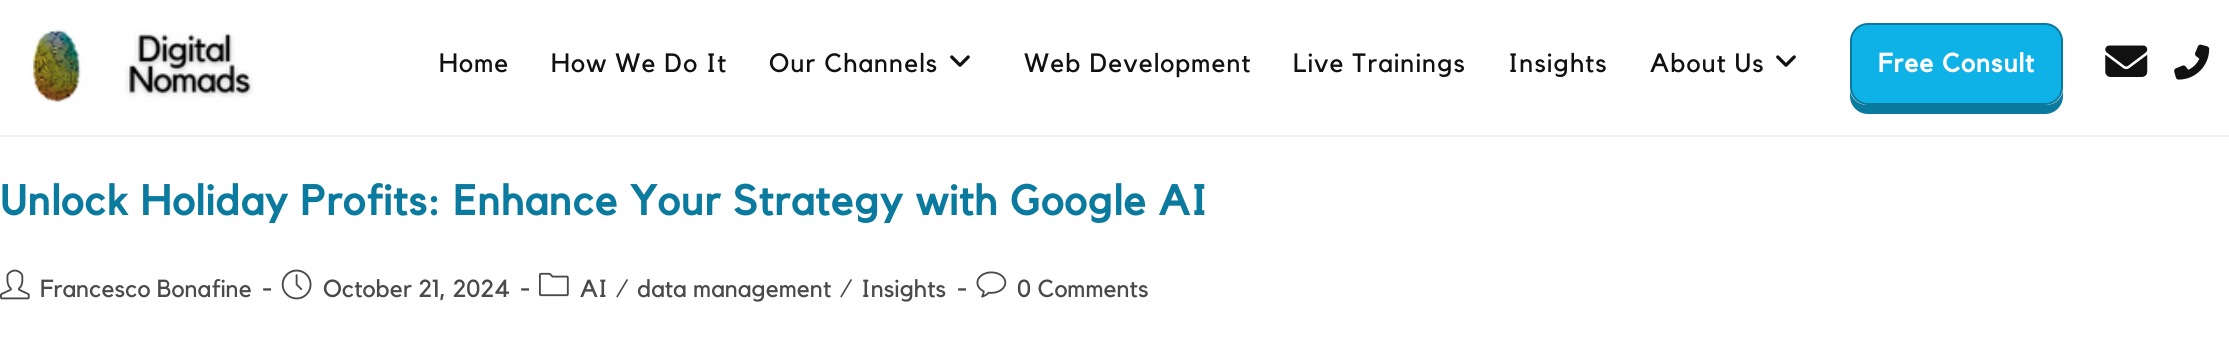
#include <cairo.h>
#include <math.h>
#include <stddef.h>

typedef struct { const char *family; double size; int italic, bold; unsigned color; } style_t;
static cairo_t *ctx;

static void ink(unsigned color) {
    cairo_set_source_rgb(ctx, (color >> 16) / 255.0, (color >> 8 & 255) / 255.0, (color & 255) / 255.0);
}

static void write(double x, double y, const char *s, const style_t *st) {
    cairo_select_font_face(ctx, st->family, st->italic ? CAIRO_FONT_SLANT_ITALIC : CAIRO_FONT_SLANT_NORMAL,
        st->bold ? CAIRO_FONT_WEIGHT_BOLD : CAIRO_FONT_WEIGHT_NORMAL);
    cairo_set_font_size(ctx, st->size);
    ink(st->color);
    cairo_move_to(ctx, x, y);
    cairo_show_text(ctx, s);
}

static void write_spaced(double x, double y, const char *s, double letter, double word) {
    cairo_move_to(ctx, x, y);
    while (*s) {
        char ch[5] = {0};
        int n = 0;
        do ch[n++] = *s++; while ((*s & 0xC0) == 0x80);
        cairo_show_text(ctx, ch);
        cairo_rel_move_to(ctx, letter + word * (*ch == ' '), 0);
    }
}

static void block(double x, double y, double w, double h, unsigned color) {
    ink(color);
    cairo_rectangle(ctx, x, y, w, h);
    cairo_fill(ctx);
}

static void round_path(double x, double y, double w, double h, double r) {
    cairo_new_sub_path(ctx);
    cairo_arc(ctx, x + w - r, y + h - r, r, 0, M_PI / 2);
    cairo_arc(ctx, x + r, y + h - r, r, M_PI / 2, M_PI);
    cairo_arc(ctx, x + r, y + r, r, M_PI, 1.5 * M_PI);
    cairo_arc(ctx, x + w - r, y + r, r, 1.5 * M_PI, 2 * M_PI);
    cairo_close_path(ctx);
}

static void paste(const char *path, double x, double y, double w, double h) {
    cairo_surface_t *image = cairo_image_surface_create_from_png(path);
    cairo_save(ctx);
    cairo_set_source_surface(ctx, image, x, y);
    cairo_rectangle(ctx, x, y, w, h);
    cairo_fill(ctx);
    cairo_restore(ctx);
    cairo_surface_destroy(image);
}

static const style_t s1 = {"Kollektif", 24.5, 0, 0, 0x4a4a4a};
static const style_t s2 = {"Kollektif", 24.5, 0, 1, 0x4a4a4a};

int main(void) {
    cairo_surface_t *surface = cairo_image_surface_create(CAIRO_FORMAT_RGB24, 2229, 349);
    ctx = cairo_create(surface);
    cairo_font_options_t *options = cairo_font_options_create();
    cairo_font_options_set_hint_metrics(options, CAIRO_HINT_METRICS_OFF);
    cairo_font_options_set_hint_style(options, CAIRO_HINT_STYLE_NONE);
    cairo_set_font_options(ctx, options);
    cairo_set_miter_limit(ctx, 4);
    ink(0xffffff);
    cairo_paint(ctx);
    block(0, 135, 2229, 2, 0xf1f1f1);
    paste("pic1.png", 30, 29, 224, 73);
    cairo_select_font_face(ctx, "Kollektif", CAIRO_FONT_SLANT_NORMAL, CAIRO_FONT_WEIGHT_NORMAL);
    cairo_set_font_size(ctx, 26.25);
    ink(0x111111);
    write_spaced(439, 72, "Home", 1.05, 0);
    write_spaced(551, 72, "How We Do It", 1.05, 0);
    write_spaced(769, 72, "Our Channels", 1.05, 0);
    paste("pic2.png", 950, 55, 20, 12);
    write_spaced(1024, 72, "Web Development", 1.05, 0);
    write_spaced(1293, 72, "Live Trainings", 1.05, 0);
    write_spaced(1508, 72, "Insights", 1.05, 0);
    write_spaced(1650, 72, "About Us", 1.05, 0);
    paste("pic2.png", 1776, 55, 20, 12);
    ink(0x0a7a9e);
    cairo_new_path(ctx);
    cairo_move_to(ctx, 1850, 90);
    cairo_line_to(ctx, 1850, 96);
    cairo_curve_to(ctx, 1850, 106, 1858, 114, 1868, 114);
    cairo_line_to(ctx, 2045, 114);
    cairo_curve_to(ctx, 2055, 114, 2063, 106, 2063, 96);
    cairo_line_to(ctx, 2063, 90);
    cairo_curve_to(ctx, 2062, 99, 2054, 105, 2046, 105);
    cairo_line_to(ctx, 1867, 105);
    cairo_curve_to(ctx, 1859, 105, 1851, 99, 1850, 90);
    cairo_close_path(ctx);
    cairo_fill(ctx);
    ink(0x0eb2e7);
    round_path(1851, 24, 211, 80, 17);
    cairo_fill_preserve(ctx);
    ink(0x0a7a9e);
    cairo_stroke(ctx);
    cairo_select_font_face(ctx, "Kollektif", CAIRO_FONT_SLANT_NORMAL, CAIRO_FONT_WEIGHT_BOLD);
    ink(0xffffff);
    write_spaced(1878, 72, "Free Consult", 1.05, 0);
    paste("pic3.png", 2105, 45, 43, 32);
    paste("pic4.png", 2174, 44, 36, 36);
    cairo_set_font_size(ctx, 42);
    ink(0x0a7a9e);
    write_spaced(0, 215, "Unlock Holiday Profits: Enhance Your Strategy with Google AI", 1.05, 0);
    paste("pic5.png", 0, 269, 30, 31);
    write(40, 297, "Francesco Bonafine", &s1);
    write(262, 297, "-", &s2);
    paste("pic6.png", 281, 269, 31, 31);
    write(323, 297, "October 21, 2024", &s1);
    write(520, 297, "-", &s2);
    paste("pic7.png", 539, 272, 30, 25);
    write(580, 297, "AI", &s1);
    write(616, 297, "/", &s1);
    write(637, 297, "data management", &s1);
    write(840, 297, "/", &s1);
    write(861, 297, "Insights", &s1);
    write(957, 297, "-", &s2);
    paste("pic8.png", 976, 271, 31, 27);
    write(1017, 297, "0 Comments", &s1);
    cairo_surface_write_to_png(surface, "screenshot.png");
    cairo_font_options_destroy(options);
    cairo_destroy(ctx);
    cairo_surface_destroy(surface);
    return 0;
}
